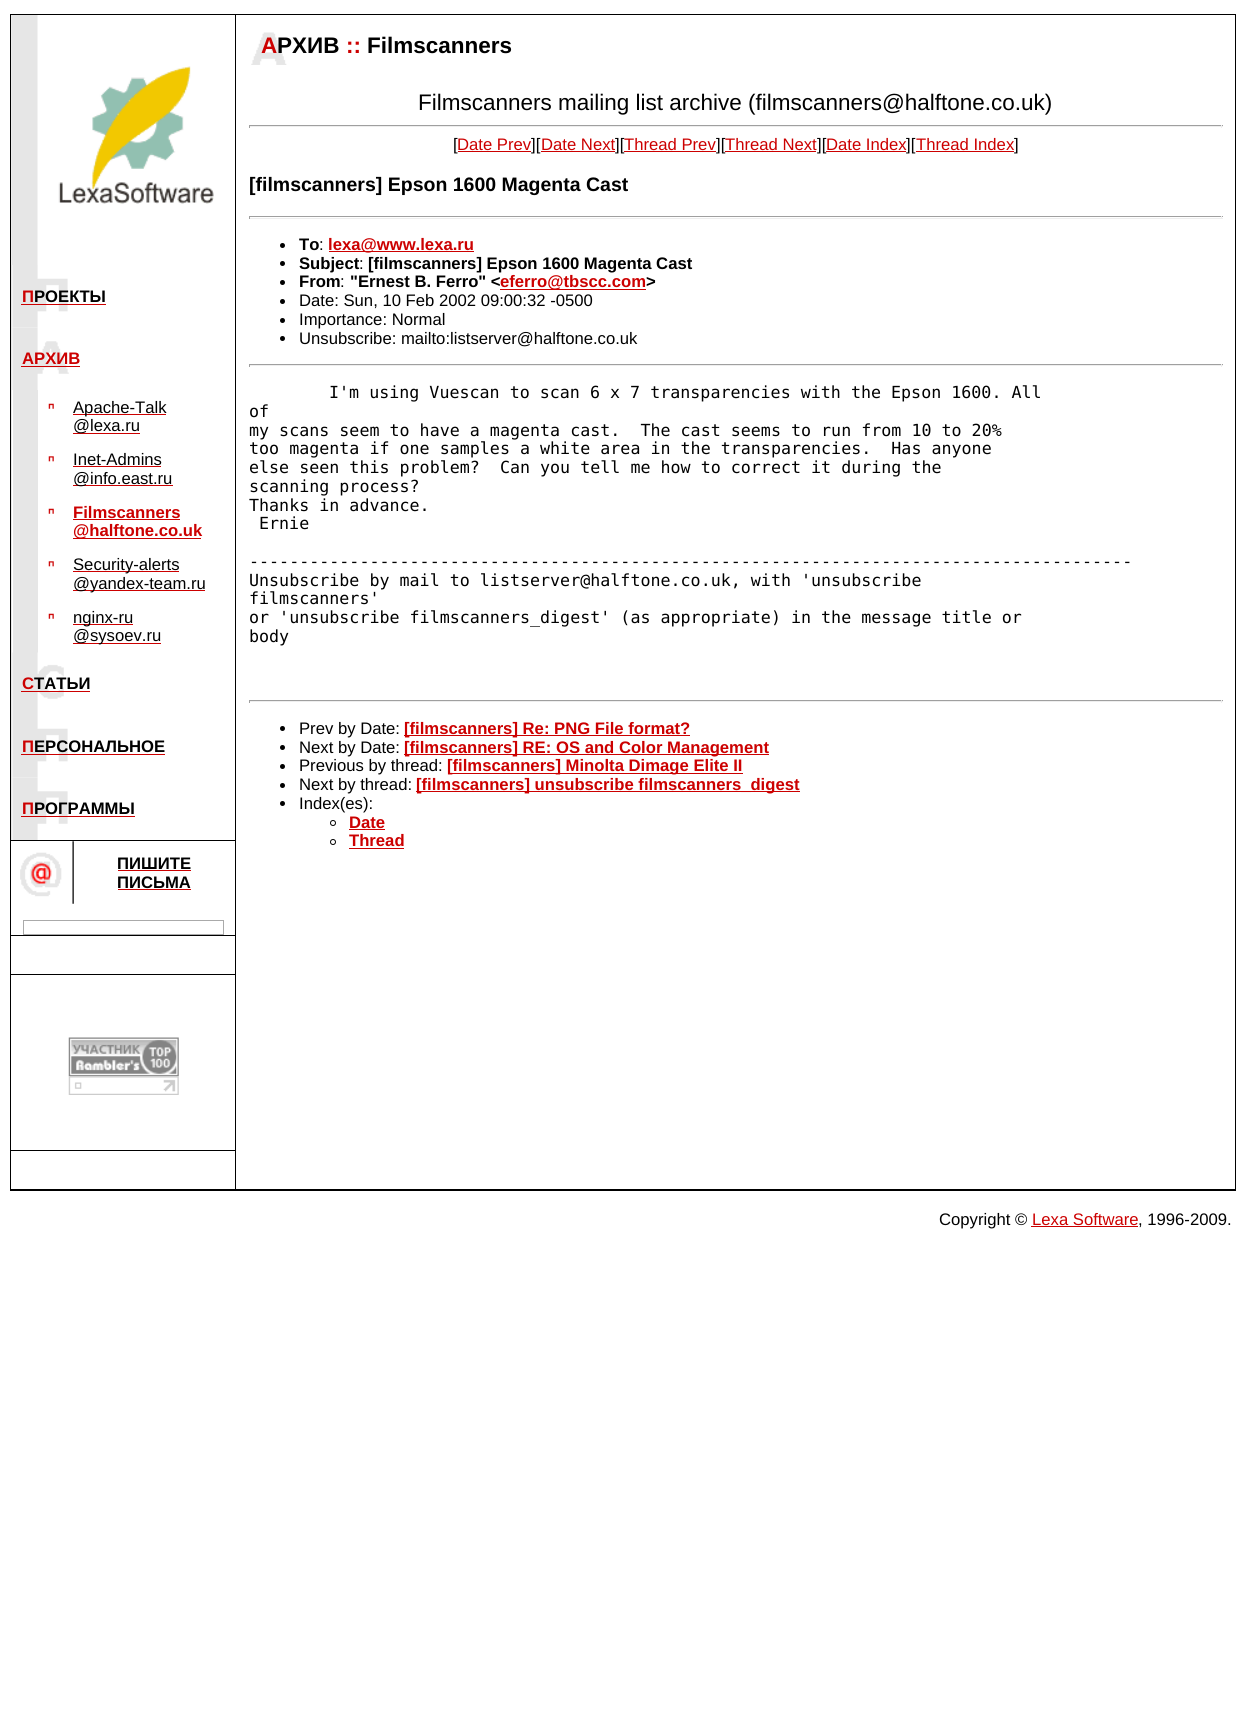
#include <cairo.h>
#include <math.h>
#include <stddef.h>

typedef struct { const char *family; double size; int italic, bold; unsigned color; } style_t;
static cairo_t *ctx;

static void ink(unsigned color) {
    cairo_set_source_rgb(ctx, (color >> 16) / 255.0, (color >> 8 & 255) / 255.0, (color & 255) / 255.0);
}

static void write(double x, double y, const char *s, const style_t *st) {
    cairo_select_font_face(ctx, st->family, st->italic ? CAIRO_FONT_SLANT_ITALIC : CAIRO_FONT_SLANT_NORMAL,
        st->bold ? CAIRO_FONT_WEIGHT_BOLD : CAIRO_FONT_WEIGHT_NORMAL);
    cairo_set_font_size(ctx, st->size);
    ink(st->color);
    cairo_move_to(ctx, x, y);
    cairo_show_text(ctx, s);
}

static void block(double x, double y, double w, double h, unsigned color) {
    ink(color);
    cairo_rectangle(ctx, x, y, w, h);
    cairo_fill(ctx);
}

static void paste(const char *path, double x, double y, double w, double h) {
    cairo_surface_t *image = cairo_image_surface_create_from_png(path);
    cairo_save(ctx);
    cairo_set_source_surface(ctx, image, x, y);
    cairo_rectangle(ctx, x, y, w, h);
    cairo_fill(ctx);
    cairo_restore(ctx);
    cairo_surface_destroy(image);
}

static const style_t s1 = {"Liberation Sans", 16.67, 0, 1, 0xcc0000};
static const style_t s2 = {"Liberation Sans", 16.67, 0, 1, 0x000000};
static const style_t s3 = {"Liberation Sans", 16.67, 0, 0, 0x000000};
static const style_t s4 = {"Liberation Sans", 22.5, 0, 1, 0xcc0000};
static const style_t s5 = {"Liberation Sans", 22.5, 0, 1, 0x000000};
static const style_t s6 = {"Liberation Sans", 22.5, 0, 0, 0x000000};
static const style_t s7 = {"Liberation Sans", 16.67, 0, 0, 0xcc0000};
static const style_t s8 = {"Liberation Sans", 19.5, 0, 1, 0x000000};
static const style_t s9 = {"DejaVu Sans Mono", 16.67, 0, 0, 0x000000};

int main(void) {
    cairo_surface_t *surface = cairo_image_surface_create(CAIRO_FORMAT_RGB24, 1246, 1714);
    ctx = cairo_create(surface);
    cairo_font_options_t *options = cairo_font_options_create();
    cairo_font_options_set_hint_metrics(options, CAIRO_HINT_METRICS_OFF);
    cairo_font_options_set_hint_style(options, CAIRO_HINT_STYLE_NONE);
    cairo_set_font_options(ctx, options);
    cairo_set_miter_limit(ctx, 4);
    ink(0xffffff);
    cairo_paint(ctx);
    block(10, 14, 1226, 1, 0x000000);
    block(10, 15, 1, 1174, 0x000000);
    paste("pic1.png", 11, 15, 203, 250);
    block(11, 265, 1, 575, 0xe6e6e6);
    paste("pic2.png", 12, 265, 56, 63);
    write(22, 302, "П", &s1);
    write(34, 302, "РОЕКТЫ", &s2);
    block(21, 304, 85, 1, 0xcc0000);
    paste("pic3.png", 12, 327, 57, 63);
    write(22, 364, "АРХИВ", &s1);
    block(21, 366, 59, 1, 0xcc0000);
    block(13, 390, 25, 263, 0xe6e6e6);
    paste("pic4.png", 48, 403, 6, 6);
    block(73, 414, 93, 1, 0xcc0000);
    write(73, 413, "Apache-Talk", &s3);
    block(73, 433, 67, 1, 0xcc0000);
    write(73, 431, "@lexa.ru", &s3);
    paste("pic5.png", 48, 456, 6, 6);
    write(73, 465, "Inet-Admins", &s3);
    block(73, 466, 88, 1, 0xcc0000);
    block(73, 485, 100, 1, 0xcc0000);
    write(73, 484, "@info.east.ru", &s3);
    paste("pic4.png", 48, 508, 6, 6);
    write(73, 518, "Filmscanners", &s1);
    block(73, 519, 107, 1, 0xcc0000);
    block(73, 538, 128, 1, 0xcc0000);
    write(73, 536, "@halftone.co.uk", &s1);
    paste("pic5.png", 48, 561, 6, 6);
    block(73, 571, 106, 1, 0xcc0000);
    write(73, 570, "Security-alerts", &s3);
    block(73, 590, 132, 1, 0xcc0000);
    write(73, 589, "@yandex-team.ru", &s3);
    paste("pic4.png", 48, 613, 6, 6);
    block(73, 624, 60, 1, 0xcc0000);
    write(73, 623, "nginx-ru", &s3);
    block(73, 643, 88, 1, 0xcc0000);
    write(73, 641, "@sysoev.ru", &s3);
    paste("pic6.png", 12, 652, 52, 63);
    write(22, 689, "С", &s1);
    block(21, 691, 69, 1, 0xcc0000);
    write(34, 689, "ТАТЬИ", &s2);
    paste("pic2.png", 12, 715, 56, 63);
    write(22, 752, "П", &s1);
    write(34, 752, "ЕРСОНАЛЬНОЕ", &s2);
    block(21, 754, 144, 1, 0xcc0000);
    paste("pic7.png", 12, 777, 56, 63);
    write(22, 814, "П", &s1);
    write(34, 814, "РОГРАММЫ", &s2);
    block(21, 816, 114, 1, 0xcc0000);
    block(11, 840, 224, 1, 0x000000);
    paste("pic8.png", 20, 841, 54, 63);
    write(117, 869, "ПИШИТЕ", &s2);
    block(118, 870, 73, 1, 0xcc0000);
    write(117, 888, "ПИСЬМА", &s2);
    block(118, 889, 73, 1, 0xcc0000);
    block(23, 920, 201, 15, 0xaaaaaa);
    block(24, 921, 199, 13, 0xffffff);
    block(11, 935, 224, 1, 0x000000);
    block(11, 974, 224, 1, 0x000000);
    paste("pic9.png", 68, 1037, 111, 40);
    paste("pic10.png", 68, 1076, 111, 19);
    block(11, 1150, 224, 1, 0x000000);
    block(235, 15, 1, 1174, 0x000000);
    paste("pic11.png", 251, 32, 36, 33);
    write(261, 53, "А", &s4);
    write(277, 53, "РХИВ", &s5);
    write(346, 53, "::", &s4);
    write(367, 53, "Filmscanners", &s5);
    write(418, 110, "Filmscanners mailing list archive (filmscanners@halftone.co.uk)", &s6);
    block(249, 125, 974, 1, 0x9f9f9f);
    block(1221, 125, 1, 3, 0xeeeeee);
    block(249, 126, 974, 1, 0xeeeeee);
    block(249, 125, 1, 3, 0x9f9f9f);
    write(453, 150, "[", &s3);
    write(457, 150, "Date Prev", &s7);
    block(458, 151, 73, 1, 0xcc0000);
    write(531, 150, "][", &s3);
    write(541, 150, "Date Next", &s7);
    block(541, 151, 74, 1, 0xcc0000);
    write(615, 150, "][", &s3);
    write(624, 150, "Thread Prev", &s7);
    block(624, 151, 92, 1, 0xcc0000);
    write(716, 150, "][", &s3);
    write(725, 150, "Thread Next", &s7);
    block(725, 151, 91, 1, 0xcc0000);
    write(817, 150, "][", &s3);
    write(826, 150, "Date Index", &s7);
    block(826, 151, 80, 1, 0xcc0000);
    write(906, 150, "][", &s3);
    write(916, 150, "Thread Index", &s7);
    block(916, 151, 98, 1, 0xcc0000);
    write(1014, 150, "]", &s3);
    write(249, 191, "[filmscanners] Epson 1600 Magenta Cast", &s8);
    block(249, 216, 974, 1, 0x9f9f9f);
    block(1221, 216, 1, 3, 0xeeeeee);
    block(249, 218, 974, 1, 0xeeeeee);
    block(249, 216, 1, 3, 0x9f9f9f);
    ink(0x000000);
    cairo_new_path(ctx);
    cairo_arc(ctx, 282.5, 245.5, 2.5, 0, 2 * M_PI);
    cairo_fill(ctx);
    write(299, 250, "To", &s2);
    write(319, 250, ":", &s3);
    block(329, 251, 145, 1, 0xcc0000);
    write(328, 250, "lexa@www.lexa.ru", &s1);
    ink(0x000000);
    cairo_new_path(ctx);
    cairo_arc(ctx, 282.5, 263.5, 2.5, 0, 2 * M_PI);
    cairo_fill(ctx);
    write(299, 269, "Subject", &s2);
    write(359, 269, ":", &s3);
    write(368, 269, "[filmscanners] Epson 1600 Magenta Cast", &s2);
    cairo_new_path(ctx);
    cairo_arc(ctx, 282.5, 282.5, 2.5, 0, 2 * M_PI);
    cairo_fill(ctx);
    write(299, 287, "From", &s2);
    write(340, 287, ":", &s3);
    write(350, 287, "\"Ernest B. Ferro\" <", &s2);
    block(500, 289, 146, 1, 0xcc0000);
    write(500, 287, "eferro@tbscc.com", &s1);
    write(646, 287, ">", &s2);
    cairo_new_path(ctx);
    cairo_arc(ctx, 282.5, 301.5, 2.5, 0, 2 * M_PI);
    cairo_fill(ctx);
    write(299, 306, "Date: Sun, 10 Feb 2002 09:00:32 -0500", &s3);
    cairo_new_path(ctx);
    cairo_arc(ctx, 282.5, 320.5, 2.5, 0, 2 * M_PI);
    cairo_fill(ctx);
    write(299, 325, "Importance: Normal", &s3);
    cairo_new_path(ctx);
    cairo_arc(ctx, 282.5, 338.5, 2.5, 0, 2 * M_PI);
    cairo_fill(ctx);
    write(299, 344, "Unsubscribe: mailto:listserver@halftone.co.uk", &s3);
    block(249, 364, 974, 1, 0x9f9f9f);
    block(1221, 364, 1, 3, 0xeeeeee);
    block(249, 365, 974, 1, 0xeeeeee);
    block(249, 364, 1, 3, 0x9f9f9f);
    write(329, 398, "I'm using Vuescan to scan 6 x 7 transparencies with the Epson 1600. All", &s9);
    write(249, 417, "of", &s9);
    write(249, 436, "my scans seem to have a magenta cast.  The cast seems to run from 10 to 20%", &s9);
    write(249, 454, "too magenta if one samples a white area in the transparencies.  Has anyone", &s9);
    write(249, 473, "else seen this problem?  Can you tell me how to correct it during the", &s9);
    write(249, 492, "scanning process?", &s9);
    write(249, 511, "Thanks in advance.", &s9);
    write(259, 529, "Ernie", &s9);
    write(249, 567, "----------------------------------------------------------------------------------------", &s9);
    write(249, 586, "Unsubscribe by mail to listserver@halftone.co.uk, with 'unsubscribe", &s9);
    write(249, 604, "filmscanners'", &s9);
    write(249, 623, "or 'unsubscribe filmscanners_digest' (as appropriate) in the message title or", &s9);
    write(249, 642, "body", &s9);
    block(249, 700, 974, 1, 0x9f9f9f);
    block(1221, 700, 1, 3, 0xeeeeee);
    block(249, 701, 974, 1, 0xeeeeee);
    block(249, 700, 1, 3, 0x9f9f9f);
    ink(0x000000);
    cairo_new_path(ctx);
    cairo_arc(ctx, 282.5, 728.5, 2.5, 0, 2 * M_PI);
    cairo_fill(ctx);
    write(299, 734, "Prev by Date:", &s3);
    block(404, 735, 286, 1, 0xcc0000);
    write(404, 734, "[filmscanners] Re: PNG File format?", &s1);
    ink(0x000000);
    cairo_new_path(ctx);
    cairo_arc(ctx, 282.5, 747.5, 2.5, 0, 2 * M_PI);
    cairo_fill(ctx);
    write(299, 753, "Next by Date:", &s3);
    block(404, 754, 365, 1, 0xcc0000);
    write(404, 753, "[filmscanners] RE: OS and Color Management", &s1);
    ink(0x000000);
    cairo_new_path(ctx);
    cairo_arc(ctx, 282.5, 766.5, 2.5, 0, 2 * M_PI);
    cairo_fill(ctx);
    write(299, 771, "Previous by thread:", &s3);
    block(448, 773, 295, 1, 0xcc0000);
    write(447, 771, "[filmscanners] Minolta Dimage Elite II", &s1);
    ink(0x000000);
    cairo_new_path(ctx);
    cairo_arc(ctx, 282.5, 785.5, 2.5, 0, 2 * M_PI);
    cairo_fill(ctx);
    write(299, 790, "Next by thread:", &s3);
    block(416, 791, 384, 1, 0xcc0000);
    write(416, 790, "[filmscanners] unsubscribe filmscanners_digest", &s1);
    ink(0x000000);
    cairo_new_path(ctx);
    cairo_arc(ctx, 282.5, 803.5, 2.5, 0, 2 * M_PI);
    cairo_fill(ctx);
    write(299, 809, "Index(es):", &s3);
    cairo_new_path(ctx);
    cairo_arc(ctx, 333, 823, 2.5, 0, 2 * M_PI);
    cairo_set_line_width(ctx, 1);
    cairo_stroke(ctx);
    write(349, 828, "Date", &s1);
    block(349, 829, 36, 1, 0xcc0000);
    cairo_new_path(ctx);
    cairo_arc(ctx, 333, 842, 2.5, 0, 2 * M_PI);
    ink(0x000000);
    cairo_stroke(ctx);
    write(349, 846, "Thread", &s1);
    block(349, 848, 55, 1, 0xcc0000);
    block(1235, 15, 1, 1174, 0x000000);
    block(10, 1189, 1226, 2, 0x000000);
    write(939, 1225, "Copyright ©", &s3);
    write(1032, 1225, "Lexa Software", &s7);
    block(1031, 1226, 107, 1, 0xcc0000);
    write(1138, 1225, ", 1996-2009.", &s3);
    cairo_surface_write_to_png(surface, "screenshot.png");
    cairo_font_options_destroy(options);
    cairo_destroy(ctx);
    cairo_surface_destroy(surface);
    return 0;
}
